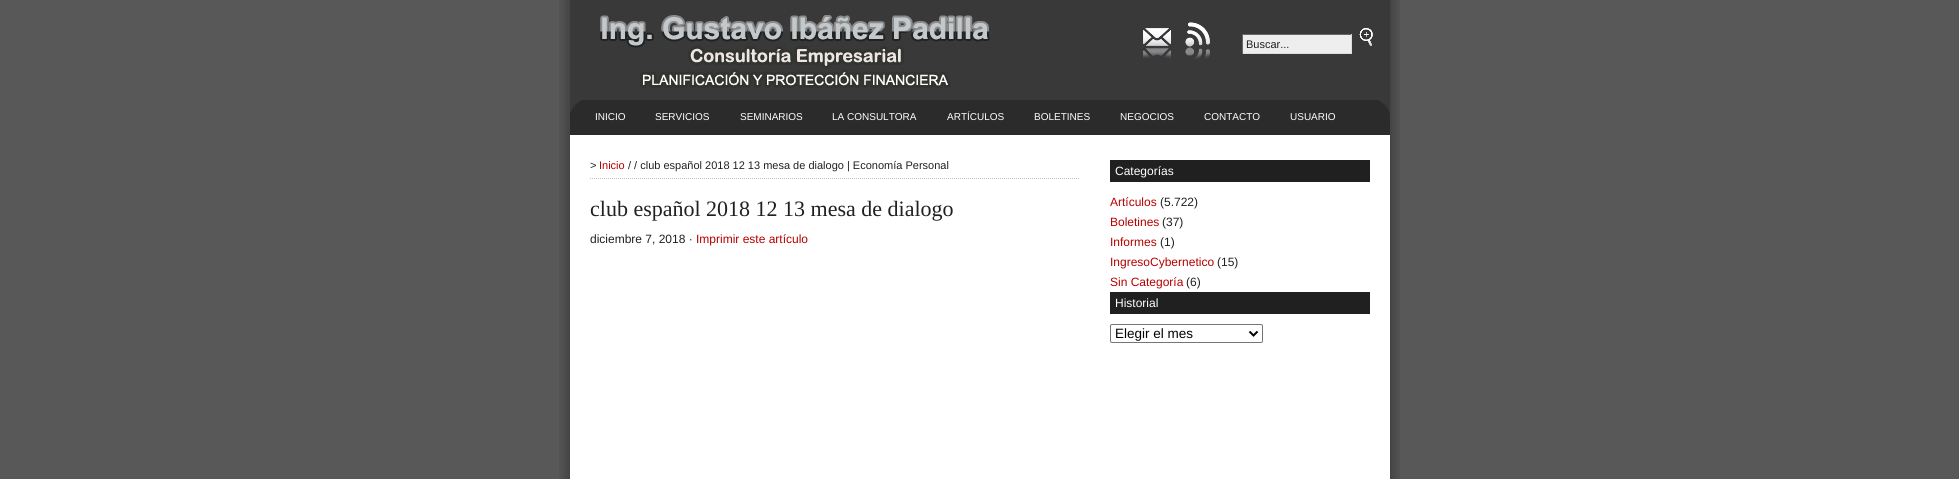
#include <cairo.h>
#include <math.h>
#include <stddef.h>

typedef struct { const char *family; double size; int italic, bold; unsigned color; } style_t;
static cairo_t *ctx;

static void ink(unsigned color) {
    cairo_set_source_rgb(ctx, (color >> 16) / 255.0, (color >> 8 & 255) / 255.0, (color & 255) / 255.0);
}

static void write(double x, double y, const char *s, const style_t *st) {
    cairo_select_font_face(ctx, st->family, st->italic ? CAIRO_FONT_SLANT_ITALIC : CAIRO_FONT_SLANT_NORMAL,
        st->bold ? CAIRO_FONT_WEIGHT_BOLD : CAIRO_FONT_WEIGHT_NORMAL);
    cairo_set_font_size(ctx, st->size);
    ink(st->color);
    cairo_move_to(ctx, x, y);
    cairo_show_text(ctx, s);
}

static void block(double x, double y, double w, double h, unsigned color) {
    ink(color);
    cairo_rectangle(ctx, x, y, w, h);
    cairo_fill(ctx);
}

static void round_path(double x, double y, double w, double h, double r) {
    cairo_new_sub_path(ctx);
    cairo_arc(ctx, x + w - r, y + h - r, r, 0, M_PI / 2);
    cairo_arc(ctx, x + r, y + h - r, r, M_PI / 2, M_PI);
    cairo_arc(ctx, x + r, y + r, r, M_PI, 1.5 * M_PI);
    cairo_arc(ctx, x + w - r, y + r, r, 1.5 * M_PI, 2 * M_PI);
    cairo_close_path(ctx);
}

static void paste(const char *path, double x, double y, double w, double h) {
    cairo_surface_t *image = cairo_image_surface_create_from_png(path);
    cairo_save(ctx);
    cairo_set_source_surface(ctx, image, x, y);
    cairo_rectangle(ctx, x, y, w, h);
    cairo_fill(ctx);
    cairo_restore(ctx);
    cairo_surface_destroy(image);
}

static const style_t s1 = {"Liberation Sans", 11, 0, 0, 0x202020};
static const style_t s2 = {"Liberation Sans", 10, 0, 0, 0xffffff};
static const style_t s3 = {"Liberation Sans", 11, 0, 0, 0xb60000};
static const style_t s4 = {"Liberation Serif", 22, 0, 0, 0x202020};
static const style_t s5 = {"Liberation Sans", 12, 0, 0, 0x202020};
static const style_t s6 = {"Liberation Sans", 12, 0, 0, 0xb60000};
static const style_t s7 = {"Liberation Sans", 12, 0, 0, 0xffffff};
static const style_t s8 = {"Liberation Sans", 13.5, 0, 0, 0x000000};

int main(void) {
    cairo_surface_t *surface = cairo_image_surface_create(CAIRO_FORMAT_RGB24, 1959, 479);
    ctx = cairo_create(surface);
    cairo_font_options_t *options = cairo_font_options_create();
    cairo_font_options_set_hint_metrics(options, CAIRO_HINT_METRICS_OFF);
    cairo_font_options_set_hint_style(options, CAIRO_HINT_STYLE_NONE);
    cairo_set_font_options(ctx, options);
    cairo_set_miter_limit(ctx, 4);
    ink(0x585858);
    cairo_paint(ctx);
    paste("pic1.png", 559, 0, 841, 479);
    block(570, 135, 820, 344, 0xffffff);
    block(570, 0, 820, 100, 0x393939);
    paste("pic2.png", 600, 15, 390, 73);
    paste("pic3.png", 1143, 28, 28, 31);
    paste("pic4.png", 1185, 22, 25, 37);
    block(1243, 35, 108, 18, 0xeeeeee);
    block(1242, 34, 110, 1, 0x666666);
    block(1351, 34, 1, 20, 0xdddddd);
    block(1242, 53, 110, 1, 0xdddddd);
    block(1242, 34, 1, 20, 0x666666);
    write(1246, 48, "Buscar...", &s1);
    paste("pic5.png", 1359, 28, 14, 18);
    block(570, 113, 820, 22, 0x2b2b2b);
    paste("pic6.png", 570, 100, 820, 13);
    write(595, 120, "INICIO", &s2);
    write(655, 120, "SERVICIOS", &s2);
    write(740, 120, "SEMINARIOS", &s2);
    write(832, 120, "LA CONSULTORA", &s2);
    write(947, 120, "ARTÍCULOS", &s2);
    write(1034, 120, "BOLETINES", &s2);
    write(1120, 120, "NEGOCIOS", &s2);
    write(1204, 120, "CONTACTO", &s2);
    write(1290, 120, "USUARIO", &s2);
    cairo_new_path(ctx);
    cairo_move_to(ctx, 590, 178.5);
    cairo_line_to(ctx, 1080, 178.5);
    ink(0xc0c0c0);
    cairo_set_line_width(ctx, 1);
    cairo_set_dash(ctx, (double[]){1, 1}, 2, 0);
    cairo_stroke(ctx);
    write(590, 169, ">", &s1);
    write(599, 169, "Inicio", &s3);
    write(628, 169, "/ / club español 2018 12 13 mesa de dialogo | Economía Personal", &s1);
    write(590, 216, "club español 2018 12 13 mesa de dialogo", &s4);
    write(590, 243, "diciembre 7, 2018 ·", &s5);
    write(696, 243, "Imprimir este artículo", &s6);
    block(1110, 160, 260, 22, 0x202020);
    write(1115, 175, "Categorías", &s7);
    write(1110, 206, "Artículos", &s6);
    write(1160, 206, "(5.722)", &s5);
    write(1110, 226, "Boletines", &s6);
    write(1162, 226, "(37)", &s5);
    write(1110, 246, "Informes", &s6);
    write(1160, 246, "(1)", &s5);
    write(1110, 266, "IngresoCybernetico", &s6);
    write(1217, 266, "(15)", &s5);
    write(1110, 286, "Sin Categoría", &s6);
    write(1186, 286, "(6)", &s5);
    block(1110, 292, 260, 22, 0x202020);
    write(1115, 307, "Historial", &s7);
    round_path(1110.5, 324.5, 152, 18, 1.5);
    ink(0x767676);
    cairo_set_dash(ctx, NULL, 0, 0);
    cairo_stroke(ctx);
    cairo_new_path(ctx);
    cairo_move_to(ctx, 1249.5, 331.5);
    cairo_line_to(ctx, 1253.5, 335.5);
    cairo_line_to(ctx, 1257.5, 331.5);
    ink(0x000000);
    cairo_set_line_width(ctx, 2);
    cairo_stroke(ctx);
    write(1115, 338, "Elegir el mes", &s8);
    cairo_surface_write_to_png(surface, "screenshot.png");
    cairo_font_options_destroy(options);
    cairo_destroy(ctx);
    cairo_surface_destroy(surface);
    return 0;
}
